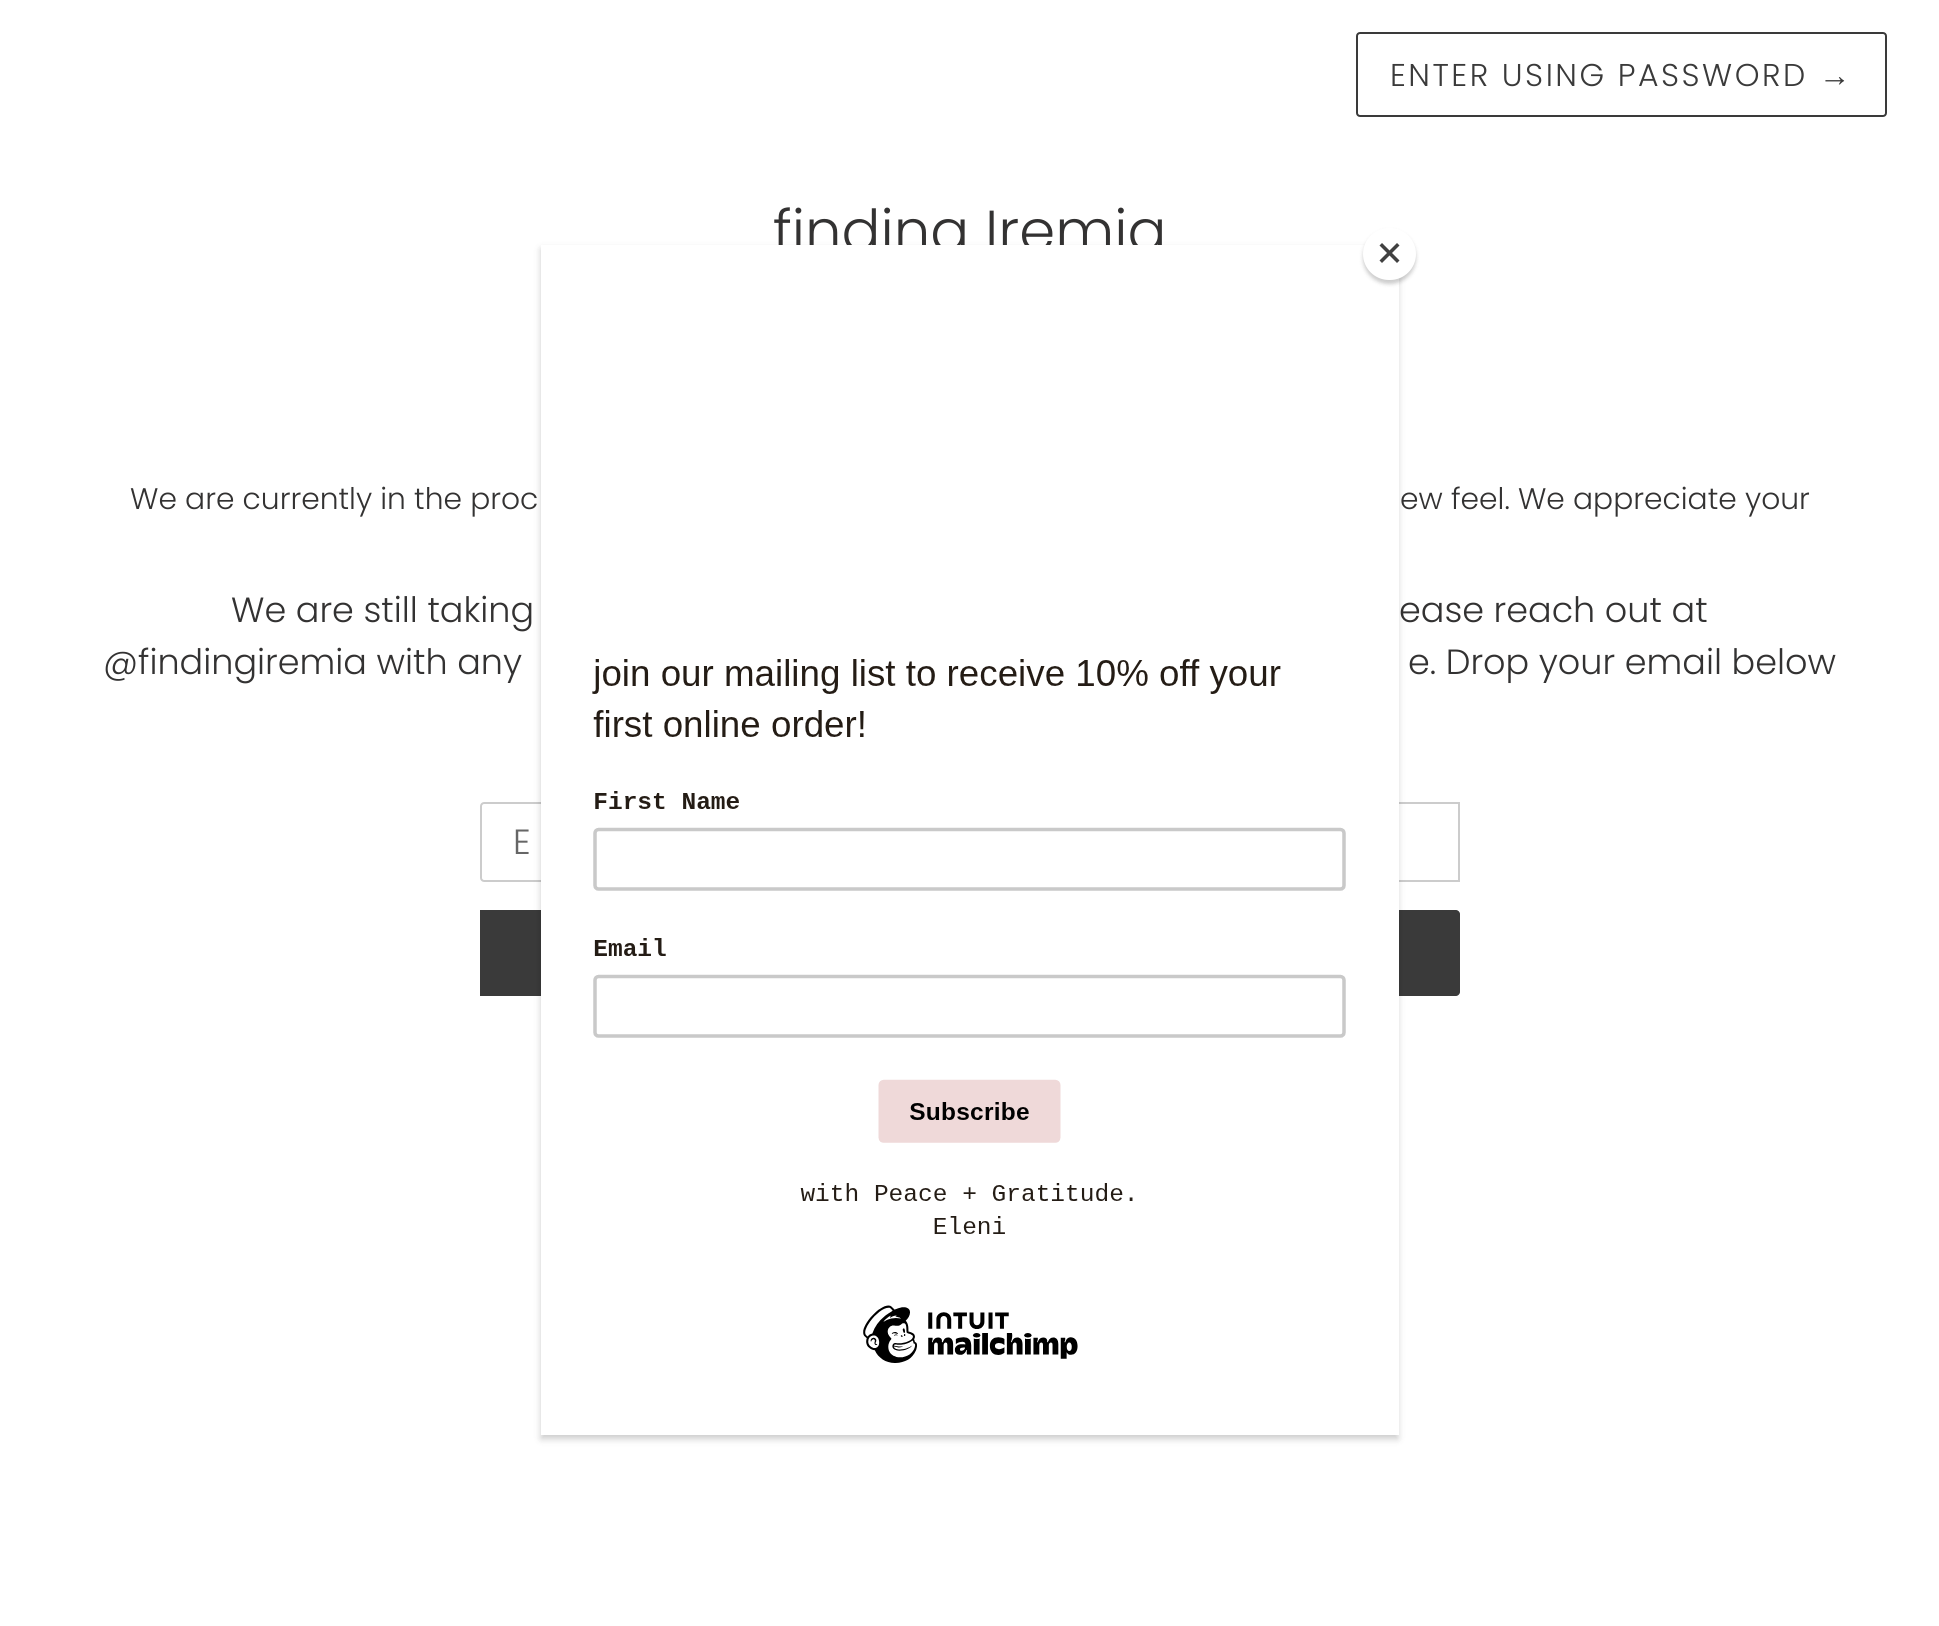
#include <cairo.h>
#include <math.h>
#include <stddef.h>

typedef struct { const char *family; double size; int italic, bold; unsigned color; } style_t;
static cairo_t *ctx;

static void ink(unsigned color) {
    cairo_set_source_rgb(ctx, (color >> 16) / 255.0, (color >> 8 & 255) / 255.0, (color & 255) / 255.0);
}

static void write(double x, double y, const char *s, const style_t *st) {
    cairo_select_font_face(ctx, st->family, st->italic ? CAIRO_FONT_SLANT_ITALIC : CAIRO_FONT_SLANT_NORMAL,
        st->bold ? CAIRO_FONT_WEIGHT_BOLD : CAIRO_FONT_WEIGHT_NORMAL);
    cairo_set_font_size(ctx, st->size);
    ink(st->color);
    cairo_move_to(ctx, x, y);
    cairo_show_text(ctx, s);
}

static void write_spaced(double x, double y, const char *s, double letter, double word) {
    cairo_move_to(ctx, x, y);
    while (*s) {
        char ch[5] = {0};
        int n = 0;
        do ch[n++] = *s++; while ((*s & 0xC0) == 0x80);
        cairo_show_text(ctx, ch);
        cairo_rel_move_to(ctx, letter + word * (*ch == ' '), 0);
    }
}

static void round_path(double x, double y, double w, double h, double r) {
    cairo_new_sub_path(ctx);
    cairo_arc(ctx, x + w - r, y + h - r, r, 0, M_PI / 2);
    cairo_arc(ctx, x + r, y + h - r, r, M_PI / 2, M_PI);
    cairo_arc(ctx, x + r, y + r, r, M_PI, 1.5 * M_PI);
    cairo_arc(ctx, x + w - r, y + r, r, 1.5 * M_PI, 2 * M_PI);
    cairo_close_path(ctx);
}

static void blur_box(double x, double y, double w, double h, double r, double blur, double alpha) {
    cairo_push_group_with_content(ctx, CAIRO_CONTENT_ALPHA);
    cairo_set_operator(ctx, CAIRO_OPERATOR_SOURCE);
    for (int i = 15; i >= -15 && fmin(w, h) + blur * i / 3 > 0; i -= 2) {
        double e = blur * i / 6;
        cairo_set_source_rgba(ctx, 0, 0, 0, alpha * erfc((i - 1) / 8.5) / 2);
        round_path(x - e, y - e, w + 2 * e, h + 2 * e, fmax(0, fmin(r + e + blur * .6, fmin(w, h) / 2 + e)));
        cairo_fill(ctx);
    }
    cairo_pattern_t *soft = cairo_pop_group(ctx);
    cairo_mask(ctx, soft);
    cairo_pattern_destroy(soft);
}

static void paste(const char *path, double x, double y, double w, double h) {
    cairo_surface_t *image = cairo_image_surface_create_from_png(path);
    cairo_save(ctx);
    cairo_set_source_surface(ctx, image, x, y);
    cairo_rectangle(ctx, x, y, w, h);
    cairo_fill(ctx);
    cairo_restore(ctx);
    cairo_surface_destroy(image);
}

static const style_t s1 = {"Poppins Light", 57.75, 0, 0, 0x333232};
static const style_t s2 = {"Poppins Light", 29.75, 0, 0, 0x333232};
static const style_t s3 = {"Poppins Light", 35, 0, 0, 0x333232};
static const style_t s4 = {"Poppins Light", 35, 0, 0, 0x666666};

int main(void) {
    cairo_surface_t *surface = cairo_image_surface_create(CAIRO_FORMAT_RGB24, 1939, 1626);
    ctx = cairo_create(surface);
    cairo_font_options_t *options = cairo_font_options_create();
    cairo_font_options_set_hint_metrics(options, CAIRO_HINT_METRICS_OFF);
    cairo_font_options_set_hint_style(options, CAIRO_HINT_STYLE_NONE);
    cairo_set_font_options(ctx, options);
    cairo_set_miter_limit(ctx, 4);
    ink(0xffffff);
    cairo_paint(ctx);
    round_path(1357, 33, 529, 83, 3);
    ink(0x3a3a3a);
    cairo_stroke(ctx);
    cairo_select_font_face(ctx, "Poppins Light", CAIRO_FONT_SLANT_NORMAL, CAIRO_FONT_WEIGHT_NORMAL);
    cairo_set_font_size(ctx, 31.5);
    write_spaced(1390, 86, "ENTER USING PASSWORD", 2.5, 0);
    cairo_select_font_face(ctx, "Liberation Sans", CAIRO_FONT_SLANT_NORMAL, CAIRO_FONT_WEIGHT_NORMAL);
    write_spaced(1819, 86, "→", 2.5, 0);
    write(773, 251, "finding Iremia", &s1);
    write(130, 509, "We are currently in the proc", &s2);
    write(1400, 509, "ew feel. We appreciate your", &s2);
    write(231, 622, "We are still taking", &s3);
    write(1399, 622, "ease reach out at", &s3);
    write(103, 674, "@findingiremia with any", &s3);
    write(1408, 674, "e. Drop your email below", &s3);
    cairo_new_path(ctx);
    cairo_move_to(ctx, 484, 803);
    cairo_line_to(ctx, 1459, 803);
    cairo_line_to(ctx, 1459, 881);
    cairo_line_to(ctx, 484, 881);
    cairo_curve_to(ctx, 482.5, 881, 481, 879.5, 481, 878);
    cairo_line_to(ctx, 481, 806);
    cairo_curve_to(ctx, 481, 804.5, 482.5, 803, 484, 803);
    cairo_close_path(ctx);
    ink(0xcccccc);
    cairo_stroke(ctx);
    write(513, 854, "E", &s4);
    ink(0x3a3a3a);
    cairo_new_path(ctx);
    cairo_move_to(ctx, 480, 910);
    cairo_line_to(ctx, 1456, 910);
    cairo_curve_to(ctx, 1458, 910, 1460, 912, 1460, 914);
    cairo_line_to(ctx, 1460, 992);
    cairo_curve_to(ctx, 1460, 994, 1458, 996, 1456, 996);
    cairo_line_to(ctx, 480, 996);
    cairo_close_path(ctx);
    cairo_fill(ctx);
    ink(0x000000);
    blur_box(541, 249, 857, 1190, 0, 3.5, 0.2);
    paste("pic1.png", 541, 245, 858, 1190);
    blur_box(1363, 231, 53, 53, 26.5, 2, 0.2);
    ink(0xffffff);
    round_path(1363, 228, 53, 52, 26);
    cairo_fill(ctx);
    ink(0x414141);
    cairo_new_path(ctx);
    cairo_move_to(ctx, 1397, 243);
    cairo_line_to(ctx, 1399.5, 245.5);
    cairo_line_to(ctx, 1382, 263);
    cairo_line_to(ctx, 1379.5, 260.5);
    cairo_close_path(ctx);
    cairo_fill(ctx);
    cairo_new_path(ctx);
    cairo_move_to(ctx, 1379.5, 245.5);
    cairo_line_to(ctx, 1382, 243);
    cairo_line_to(ctx, 1399.5, 260.5);
    cairo_line_to(ctx, 1397, 263);
    cairo_close_path(ctx);
    cairo_fill(ctx);
    cairo_surface_write_to_png(surface, "screenshot.png");
    cairo_font_options_destroy(options);
    cairo_destroy(ctx);
    cairo_surface_destroy(surface);
    return 0;
}
